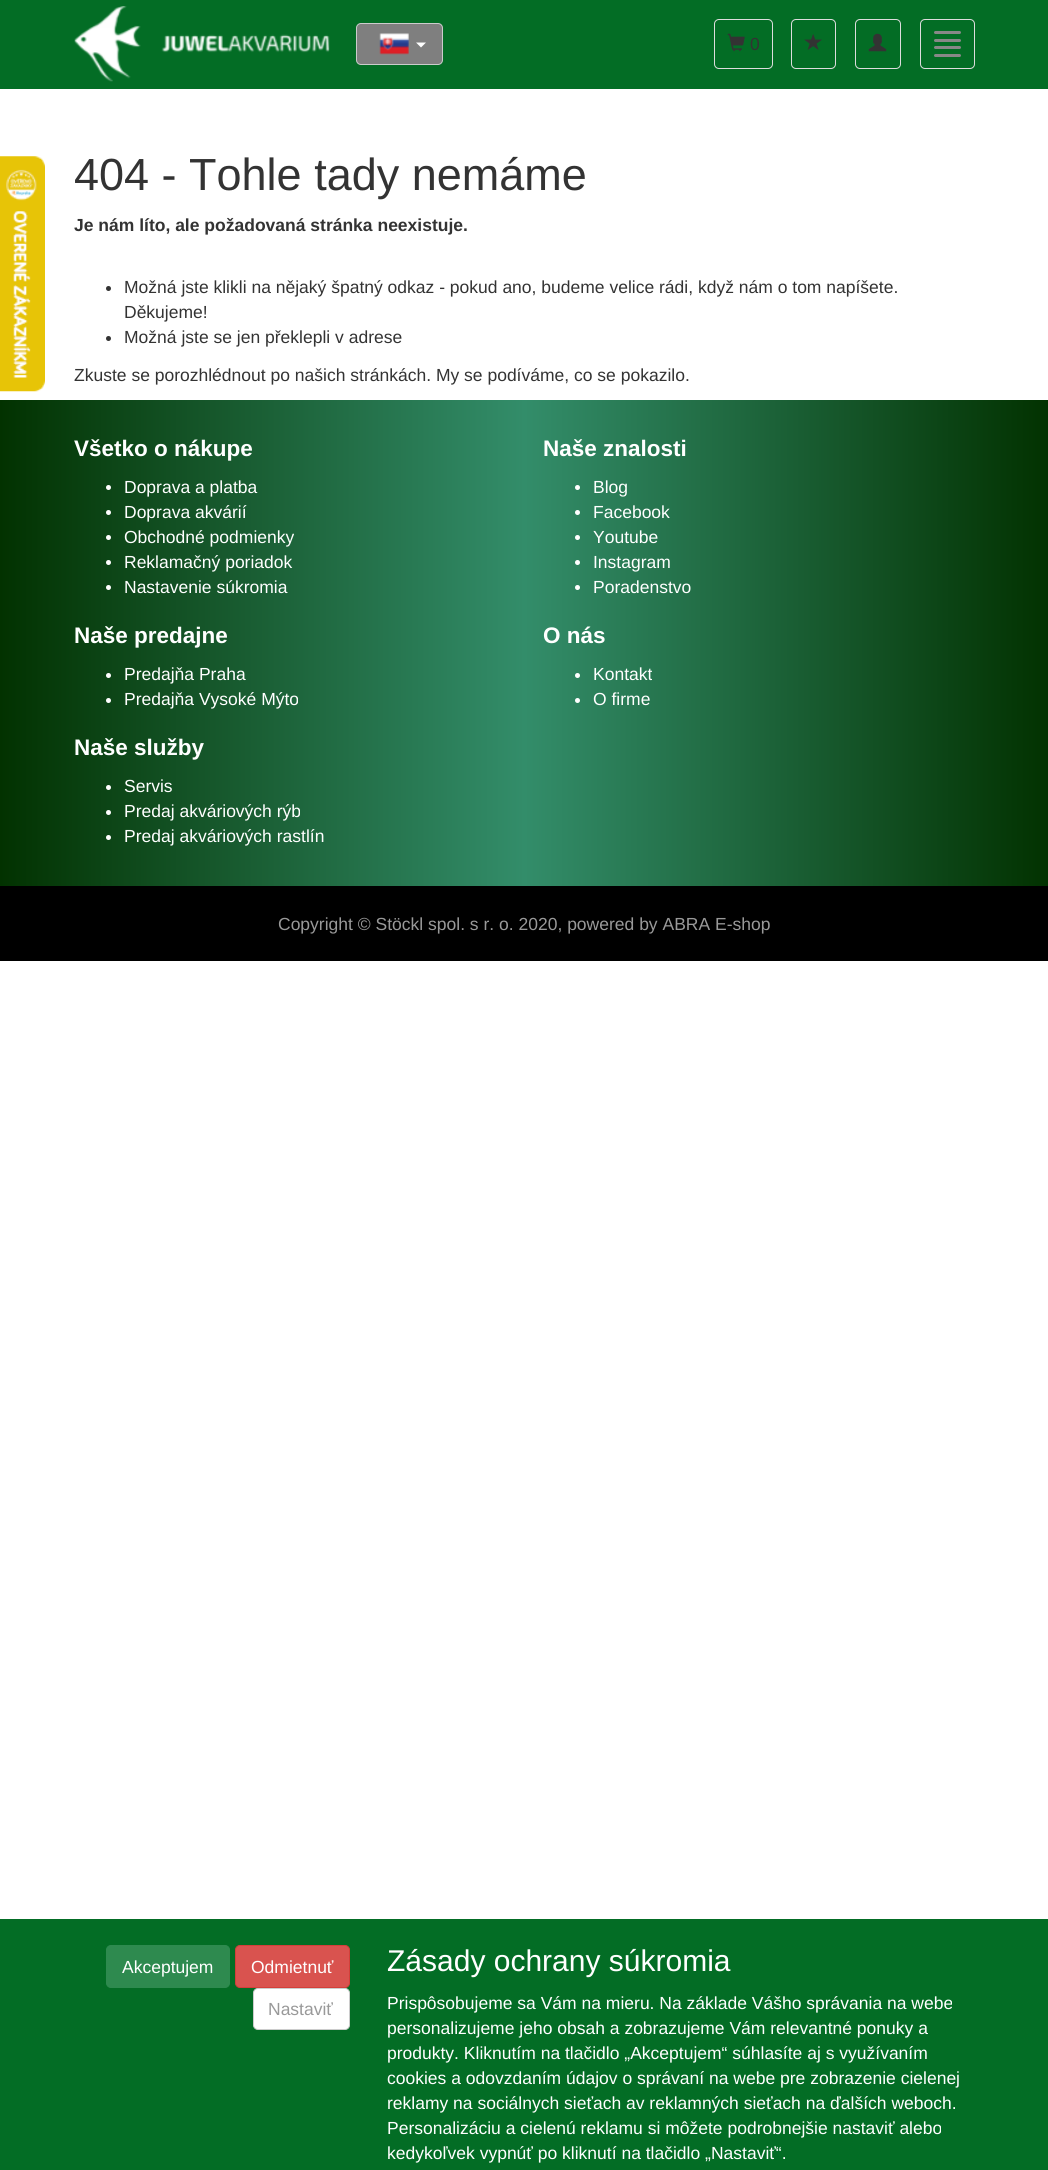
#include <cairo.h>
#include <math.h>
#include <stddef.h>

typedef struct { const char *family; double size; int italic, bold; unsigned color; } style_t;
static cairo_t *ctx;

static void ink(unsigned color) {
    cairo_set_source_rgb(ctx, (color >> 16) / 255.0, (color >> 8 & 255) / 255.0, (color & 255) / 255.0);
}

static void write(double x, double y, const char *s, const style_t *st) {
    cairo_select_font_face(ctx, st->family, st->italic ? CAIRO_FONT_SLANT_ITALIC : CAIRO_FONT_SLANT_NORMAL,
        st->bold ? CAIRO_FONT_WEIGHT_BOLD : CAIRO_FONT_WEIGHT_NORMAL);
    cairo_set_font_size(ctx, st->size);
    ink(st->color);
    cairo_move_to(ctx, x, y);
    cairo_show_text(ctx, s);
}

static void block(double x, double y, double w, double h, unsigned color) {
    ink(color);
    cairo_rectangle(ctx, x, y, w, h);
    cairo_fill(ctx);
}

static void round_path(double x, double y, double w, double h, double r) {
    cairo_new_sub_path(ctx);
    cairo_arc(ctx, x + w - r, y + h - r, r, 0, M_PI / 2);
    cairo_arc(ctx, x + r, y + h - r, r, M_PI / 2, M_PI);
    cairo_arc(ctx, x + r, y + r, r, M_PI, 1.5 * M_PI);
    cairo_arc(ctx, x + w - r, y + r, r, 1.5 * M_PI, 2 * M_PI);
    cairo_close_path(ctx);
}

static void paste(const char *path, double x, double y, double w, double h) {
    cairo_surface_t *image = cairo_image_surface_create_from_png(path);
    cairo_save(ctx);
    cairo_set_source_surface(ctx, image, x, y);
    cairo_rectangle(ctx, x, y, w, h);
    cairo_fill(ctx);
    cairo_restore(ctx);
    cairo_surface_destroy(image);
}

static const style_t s1 = {"Liberation Sans", 17.5, 0, 0, 0x333333};
static const style_t s2 = {"Liberation Sans", 45, 0, 0, 0x333333};
static const style_t s3 = {"Liberation Sans", 17.5, 0, 1, 0x333333};
static const style_t s4 = {"Liberation Sans", 22.5, 0, 1, 0xffffff};
static const style_t s5 = {"Liberation Sans", 17.5, 0, 0, 0xffffff};
static const style_t s6 = {"Liberation Sans", 17.5, 0, 0, 0x999999};
static const style_t s7 = {"Liberation Sans", 30, 0, 0, 0xffffff};

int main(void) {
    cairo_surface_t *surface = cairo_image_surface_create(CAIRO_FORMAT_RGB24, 1048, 2170);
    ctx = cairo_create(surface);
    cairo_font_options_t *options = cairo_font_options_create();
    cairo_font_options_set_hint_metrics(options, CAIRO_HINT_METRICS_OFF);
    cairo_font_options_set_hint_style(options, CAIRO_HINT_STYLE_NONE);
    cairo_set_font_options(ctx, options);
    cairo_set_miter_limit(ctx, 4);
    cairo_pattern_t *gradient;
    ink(0xffffff);
    cairo_paint(ctx);
    paste("pic1.png", 0, 156, 45, 236);
    block(0, 0, 1048, 89, 0x036d25);
    paste("pic2.png", 74, 6, 256, 76);
    ink(0x7f7f7f);
    round_path(356.5, 23.5, 86, 41, 4.5);
    cairo_fill_preserve(ctx);
    ink(0xcccccc);
    cairo_set_line_width(ctx, 1);
    cairo_stroke(ctx);
    paste("pic3.png", 379, 33, 30, 22);
    ink(0xffffff);
    cairo_new_path(ctx);
    cairo_move_to(ctx, 416, 42.5);
    cairo_line_to(ctx, 426, 42.5);
    cairo_line_to(ctx, 421, 47.5);
    cairo_close_path(ctx);
    cairo_fill(ctx);
    round_path(714.5, 19.5, 58, 49, 4.5);
    ink(0xdddddd);
    cairo_stroke(ctx);
    paste("pic4.png", 727, 33, 18, 19);
    write(750, 50, "0", &s1);
    round_path(791.5, 19.5, 44, 49, 4.5);
    ink(0xdddddd);
    cairo_stroke(ctx);
    paste("pic5.png", 804, 34, 18, 16);
    round_path(855.5, 19.5, 45, 49, 4.5);
    cairo_stroke(ctx);
    paste("pic6.png", 868, 33, 19, 19);
    round_path(920.5, 19.5, 54, 49, 4.5);
    cairo_stroke(ctx);
    ink(0x888888);
    round_path(934, 31, 27, 3, 1.5);
    cairo_fill(ctx);
    round_path(934, 39, 27, 3, 1.5);
    cairo_fill(ctx);
    round_path(934, 46, 27, 3, 1.5);
    cairo_fill(ctx);
    round_path(934, 54, 27, 3, 1.5);
    cairo_fill(ctx);
    write(74, 190, "404 - Tohle tady nemáme", &s2);
    write(74, 231, "Je nám líto, ale požadovaná stránka neexistuje.", &s3);
    cairo_new_path(ctx);
    cairo_arc(ctx, 108.5, 288.5, 2.5, 0, 2 * M_PI);
    cairo_fill(ctx);
    write(124, 293, "Možná jste klikli na nějaký špatný odkaz - pokud ano, budeme velice rádi, když nám o tom napíšete.", &s1);
    write(124, 318, "Děkujeme!", &s1);
    cairo_new_path(ctx);
    cairo_arc(ctx, 108.5, 338.5, 2.5, 0, 2 * M_PI);
    cairo_fill(ctx);
    write(124, 343, "Možná jste se jen překlepli v adrese", &s1);
    write(74, 381, "Zkuste se porozhlédnout po našich stránkách. My se podíváme, co se pokazilo.", &s1);
    gradient = cairo_pattern_create_linear(0, 643, 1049, 643);
    cairo_pattern_add_color_stop_rgba(gradient, 0, 0.008, 0.196, 0, 1);
    cairo_pattern_add_color_stop_rgba(gradient, 0.5, 0.2, 0.553, 0.416, 1);
    cairo_pattern_add_color_stop_rgba(gradient, 1, 0.008, 0.196, 0, 1);
    cairo_set_source(ctx, gradient);
    cairo_pattern_destroy(gradient);
    cairo_rectangle(ctx, 0, 400, 1048, 486);
    cairo_fill(ctx);
    write(74, 456, "Všetko o nákupe", &s4);
    cairo_new_path(ctx);
    cairo_arc(ctx, 108.5, 487.5, 2.5, 0, 2 * M_PI);
    cairo_fill(ctx);
    write(124, 493, "Doprava a platba", &s5);
    cairo_new_path(ctx);
    cairo_arc(ctx, 108.5, 512.5, 2.5, 0, 2 * M_PI);
    cairo_fill(ctx);
    write(124, 518, "Doprava akvárií", &s5);
    cairo_new_path(ctx);
    cairo_arc(ctx, 108.5, 537.5, 2.5, 0, 2 * M_PI);
    cairo_fill(ctx);
    write(124, 543, "Obchodné podmienky", &s5);
    cairo_new_path(ctx);
    cairo_arc(ctx, 108.5, 562.5, 2.5, 0, 2 * M_PI);
    cairo_fill(ctx);
    write(124, 568, "Reklamačný poriadok", &s5);
    cairo_new_path(ctx);
    cairo_arc(ctx, 108.5, 587.5, 2.5, 0, 2 * M_PI);
    cairo_fill(ctx);
    write(124, 593, "Nastavenie súkromia", &s5);
    write(543, 456, "Naše znalosti", &s4);
    cairo_new_path(ctx);
    cairo_arc(ctx, 577.5, 487.5, 2.5, 0, 2 * M_PI);
    cairo_fill(ctx);
    write(593, 493, "Blog", &s5);
    cairo_new_path(ctx);
    cairo_arc(ctx, 577.5, 512.5, 2.5, 0, 2 * M_PI);
    cairo_fill(ctx);
    write(593, 518, "Facebook", &s5);
    cairo_new_path(ctx);
    cairo_arc(ctx, 577.5, 537.5, 2.5, 0, 2 * M_PI);
    cairo_fill(ctx);
    write(593, 543, "Youtube", &s5);
    cairo_new_path(ctx);
    cairo_arc(ctx, 577.5, 562.5, 2.5, 0, 2 * M_PI);
    cairo_fill(ctx);
    write(593, 568, "Instagram", &s5);
    cairo_new_path(ctx);
    cairo_arc(ctx, 577.5, 587.5, 2.5, 0, 2 * M_PI);
    cairo_fill(ctx);
    write(593, 593, "Poradenstvo", &s5);
    write(74, 643, "Naše predajne", &s4);
    cairo_new_path(ctx);
    cairo_arc(ctx, 108.5, 675.5, 2.5, 0, 2 * M_PI);
    cairo_fill(ctx);
    write(124, 680, "Predajňa Praha", &s5);
    cairo_new_path(ctx);
    cairo_arc(ctx, 108.5, 700.5, 2.5, 0, 2 * M_PI);
    cairo_fill(ctx);
    write(124, 705, "Predajňa Vysoké Mýto", &s5);
    write(543, 643, "O nás", &s4);
    cairo_new_path(ctx);
    cairo_arc(ctx, 577.5, 675.5, 2.5, 0, 2 * M_PI);
    cairo_fill(ctx);
    write(593, 680, "Kontakt", &s5);
    cairo_new_path(ctx);
    cairo_arc(ctx, 577.5, 700.5, 2.5, 0, 2 * M_PI);
    cairo_fill(ctx);
    write(593, 705, "O firme", &s5);
    write(74, 755, "Naše služby", &s4);
    cairo_new_path(ctx);
    cairo_arc(ctx, 108.5, 787.5, 2.5, 0, 2 * M_PI);
    cairo_fill(ctx);
    write(124, 792, "Servis", &s5);
    cairo_new_path(ctx);
    cairo_arc(ctx, 108.5, 812.5, 2.5, 0, 2 * M_PI);
    cairo_fill(ctx);
    write(124, 817, "Predaj akváriových rýb", &s5);
    cairo_new_path(ctx);
    cairo_arc(ctx, 108.5, 837.5, 2.5, 0, 2 * M_PI);
    cairo_fill(ctx);
    write(124, 842, "Predaj akváriových rastlín", &s5);
    block(0, 886, 1048, 75, 0x000000);
    write(278, 930, "Copyright © Stöckl spol. s r. o. 2020, powered by ABRA E-shop", &s6);
    block(0, 1919, 1048, 251, 0x036d25);
    ink(0x2e8a4f);
    round_path(106.5, 1945.5, 123, 42, 4.5);
    cairo_fill_preserve(ctx);
    cairo_stroke(ctx);
    write(122, 1973, "Akceptujem", &s5);
    ink(0xd9534f);
    round_path(235.5, 1945.5, 114, 42, 4.5);
    cairo_fill_preserve(ctx);
    ink(0xd43f3a);
    cairo_stroke(ctx);
    write(251, 1973, "Odmietnuť", &s5);
    round_path(253.5, 1988.5, 96, 41, 4.5);
    cairo_fill_preserve(ctx);
    ink(0xcccccc);
    cairo_stroke(ctx);
    write(268, 2015, "Nastaviť", &s6);
    write(387, 1971, "Zásady ochrany súkromia", &s7);
    write(387, 2009, "Prispôsobujeme sa Vám na mieru. Na základe Vášho správania na webe", &s5);
    write(387, 2034, "personalizujeme jeho obsah a zobrazujeme Vám relevantné ponuky a", &s5);
    write(387, 2059, "produkty. Kliknutím na tlačidlo „Akceptujem“ súhlasíte aj s využívaním", &s5);
    write(387, 2084, "cookies a odovzdaním údajov o správaní na webe pre zobrazenie cielenej", &s5);
    write(387, 2109, "reklamy na sociálnych sieťach av reklamných sieťach na ďalších weboch.", &s5);
    write(387, 2134, "Personalizáciu a cielenú reklamu si môžete podrobnejšie nastaviť alebo", &s5);
    write(387, 2159, "kedykoľvek vypnúť po kliknutí na tlačidlo „Nastaviť“.", &s5);
    cairo_surface_write_to_png(surface, "screenshot.png");
    cairo_font_options_destroy(options);
    cairo_destroy(ctx);
    cairo_surface_destroy(surface);
    return 0;
}
